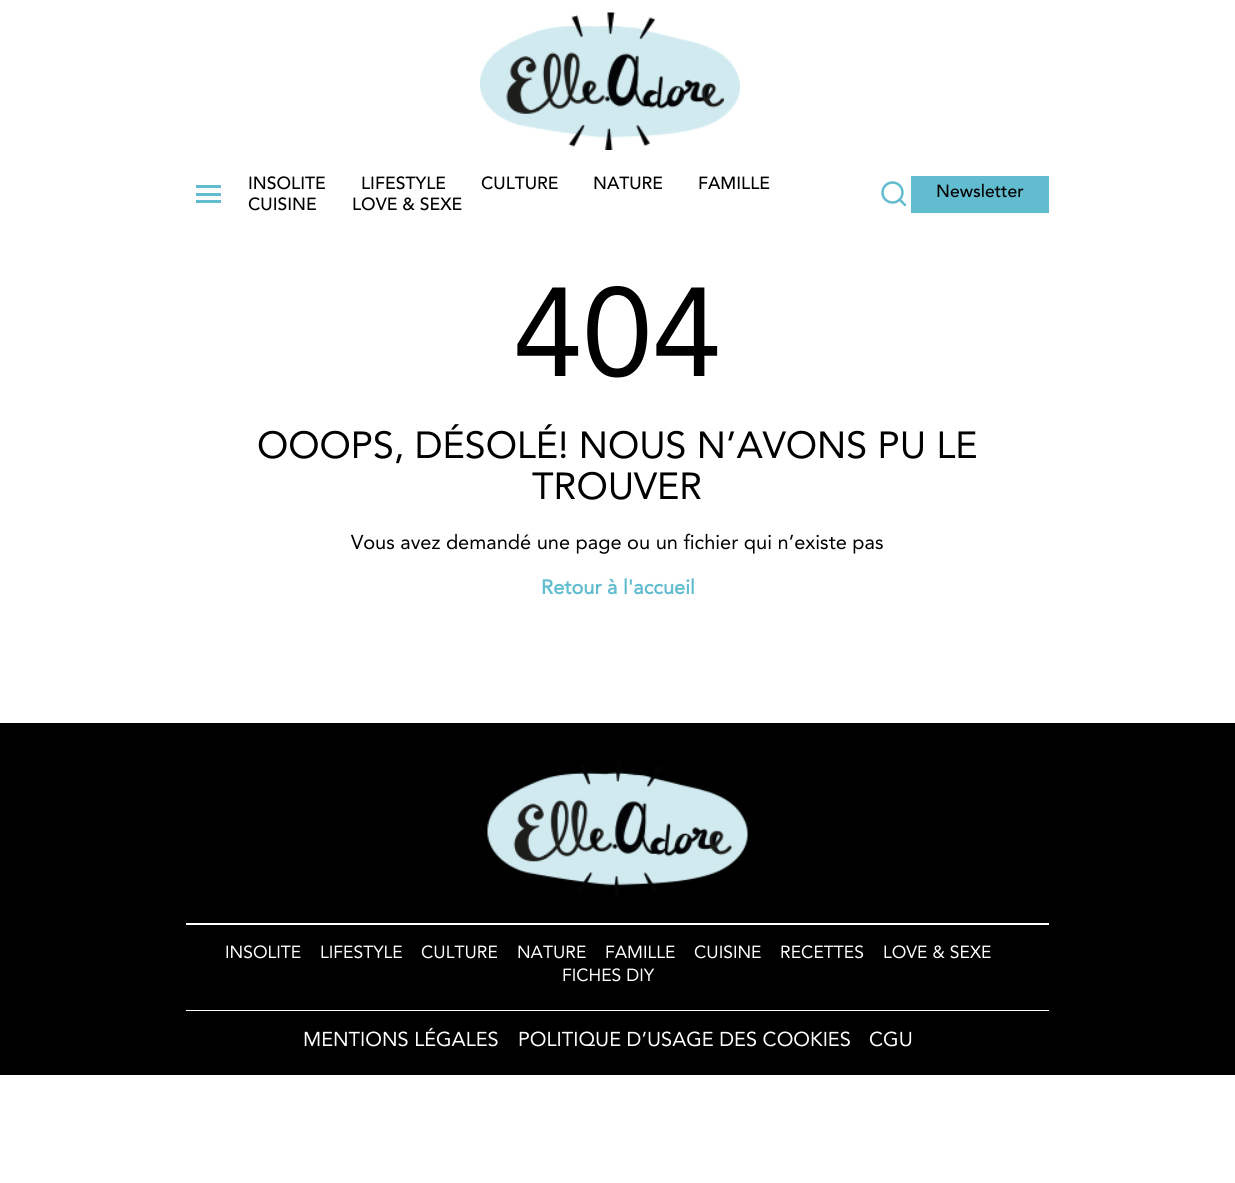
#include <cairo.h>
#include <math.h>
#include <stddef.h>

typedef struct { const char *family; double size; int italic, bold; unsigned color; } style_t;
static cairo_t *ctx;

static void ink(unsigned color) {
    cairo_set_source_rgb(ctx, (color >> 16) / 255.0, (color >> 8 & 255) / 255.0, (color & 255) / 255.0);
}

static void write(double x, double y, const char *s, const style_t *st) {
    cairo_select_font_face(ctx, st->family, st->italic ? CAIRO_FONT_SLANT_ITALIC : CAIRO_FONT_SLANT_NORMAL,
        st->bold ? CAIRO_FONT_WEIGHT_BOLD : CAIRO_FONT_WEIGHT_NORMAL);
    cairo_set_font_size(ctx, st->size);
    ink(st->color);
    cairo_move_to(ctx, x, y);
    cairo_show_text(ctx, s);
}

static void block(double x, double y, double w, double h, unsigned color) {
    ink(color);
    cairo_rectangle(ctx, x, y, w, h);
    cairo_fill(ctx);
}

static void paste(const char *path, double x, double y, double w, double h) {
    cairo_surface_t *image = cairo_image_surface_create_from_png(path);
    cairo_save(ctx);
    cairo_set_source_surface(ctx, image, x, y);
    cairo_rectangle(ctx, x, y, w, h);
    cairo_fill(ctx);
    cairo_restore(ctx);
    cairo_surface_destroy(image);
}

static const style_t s1 = {"Avenir Medium", 17.5, 0, 0, 0x000000};
static const style_t s2 = {"Avenir", 125, 0, 0, 0x000000};
static const style_t s3 = {"Avenir", 37.5, 0, 0, 0x000000};
static const style_t s4 = {"Avenir", 20, 0, 0, 0x000000};
static const style_t s5 = {"Avenir", 20, 0, 1, 0x61bccf};
static const style_t s6 = {"Avenir", 17.5, 0, 0, 0xffffff};
static const style_t s7 = {"Avenir", 20, 0, 0, 0xffffff};

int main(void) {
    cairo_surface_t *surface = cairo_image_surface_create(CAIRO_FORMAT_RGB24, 1235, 1183);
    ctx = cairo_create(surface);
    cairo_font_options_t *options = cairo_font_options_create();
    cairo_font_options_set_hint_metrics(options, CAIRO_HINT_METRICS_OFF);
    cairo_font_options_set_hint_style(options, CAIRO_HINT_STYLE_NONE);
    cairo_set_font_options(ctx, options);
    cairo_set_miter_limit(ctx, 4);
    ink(0xffffff);
    cairo_paint(ctx);
    paste("pic1.png", 480, 12, 260, 138);
    block(196, 185, 25, 3, 0x61bccf);
    block(196, 193, 25, 3, 0x61bccf);
    block(196, 200, 25, 3, 0x61bccf);
    write(248, 189, "INSOLITE", &s1);
    write(361, 189, "LIFESTYLE", &s1);
    write(481, 189, "CULTURE", &s1);
    write(593, 189, "NATURE", &s1);
    write(698, 189, "FAMILLE", &s1);
    write(248, 210, "CUISINE", &s1);
    write(352, 210, "LOVE & SEXE", &s1);
    cairo_new_path(ctx);
    cairo_arc(ctx, 892.5, 192.5, 10, 0, 2 * M_PI);
    ink(0x61bccf);
    cairo_set_line_width(ctx, 2.5);
    cairo_stroke(ctx);
    cairo_new_path(ctx);
    cairo_move_to(ctx, 905, 205);
    cairo_line_to(ctx, 899.5, 199.5);
    cairo_set_line_cap(ctx, CAIRO_LINE_CAP_ROUND);
    cairo_set_line_join(ctx, CAIRO_LINE_JOIN_ROUND);
    cairo_stroke(ctx);
    block(911, 176, 138, 37, 0x61bccf);
    write(936, 197, "Newsletter", &s1);
    write(513, 376, "404", &s2);
    write(257, 458, "OOOPS, DÉSOLÉ! NOUS N’AVONS PU LE", &s3);
    write(532, 499, "TROUVER", &s3);
    write(351, 549, "Vous avez demandé une page ou un fichier qui n’existe pas", &s4);
    write(541, 594, "Retour à l'accueil", &s5);
    block(0, 723, 1235, 352, 0x000000);
    block(186, 923, 863, 2, 0xffffff);
    paste("pic2.png", 487, 760, 261, 137);
    write(225, 958, "INSOLITE", &s6);
    write(320, 958, "LIFESTYLE", &s6);
    write(421, 958, "CULTURE", &s6);
    write(517, 958, "NATURE", &s6);
    write(605, 958, "FAMILLE", &s6);
    write(694, 958, "CUISINE", &s6);
    write(780, 958, "RECETTES", &s6);
    write(883, 958, "LOVE & SEXE", &s6);
    write(562, 981, "FICHES DIY", &s6);
    block(186, 1010, 863, 1, 0xffffff);
    write(303, 1046, "MENTIONS LÉGALES", &s7);
    write(518, 1046, "POLITIQUE D’USAGE DES COOKIES", &s7);
    write(869, 1046, "CGU", &s7);
    cairo_surface_write_to_png(surface, "screenshot.png");
    cairo_font_options_destroy(options);
    cairo_destroy(ctx);
    cairo_surface_destroy(surface);
    return 0;
}
